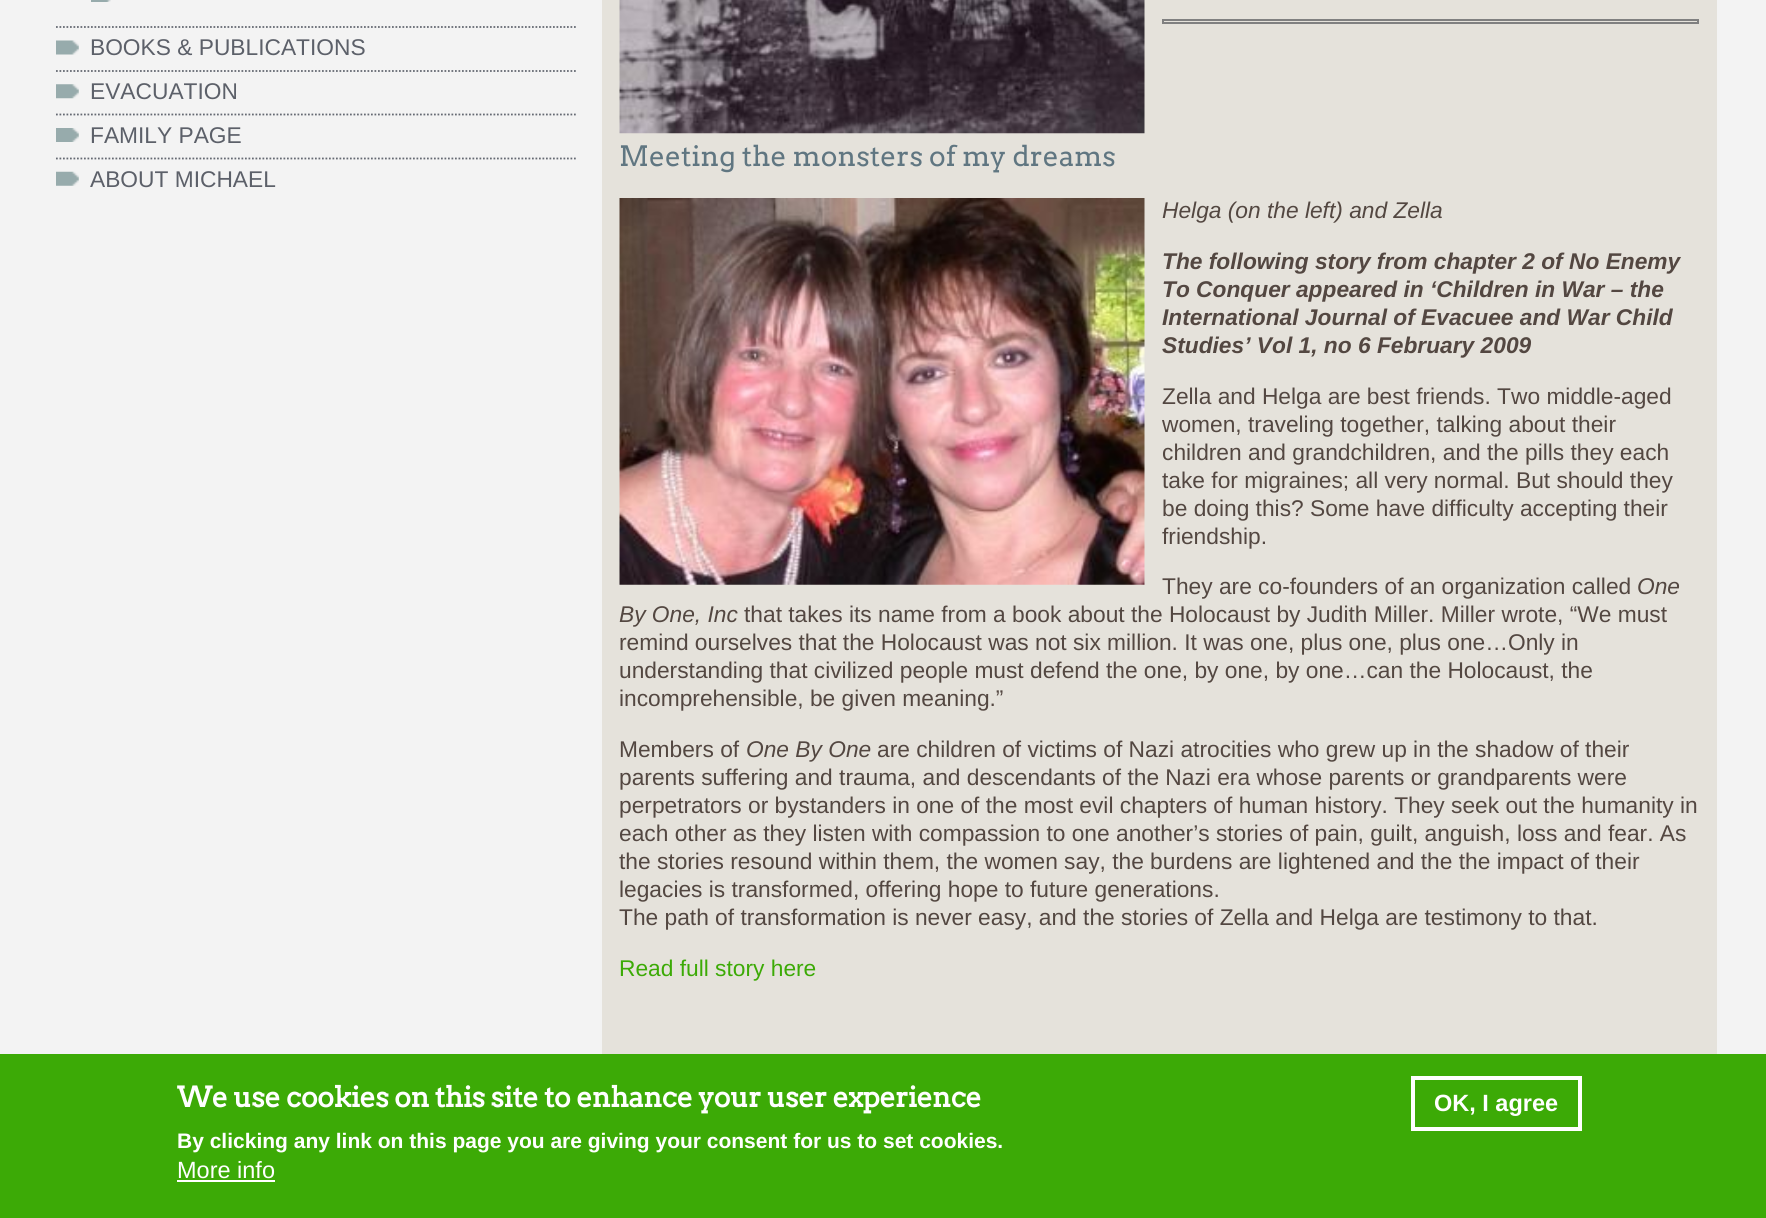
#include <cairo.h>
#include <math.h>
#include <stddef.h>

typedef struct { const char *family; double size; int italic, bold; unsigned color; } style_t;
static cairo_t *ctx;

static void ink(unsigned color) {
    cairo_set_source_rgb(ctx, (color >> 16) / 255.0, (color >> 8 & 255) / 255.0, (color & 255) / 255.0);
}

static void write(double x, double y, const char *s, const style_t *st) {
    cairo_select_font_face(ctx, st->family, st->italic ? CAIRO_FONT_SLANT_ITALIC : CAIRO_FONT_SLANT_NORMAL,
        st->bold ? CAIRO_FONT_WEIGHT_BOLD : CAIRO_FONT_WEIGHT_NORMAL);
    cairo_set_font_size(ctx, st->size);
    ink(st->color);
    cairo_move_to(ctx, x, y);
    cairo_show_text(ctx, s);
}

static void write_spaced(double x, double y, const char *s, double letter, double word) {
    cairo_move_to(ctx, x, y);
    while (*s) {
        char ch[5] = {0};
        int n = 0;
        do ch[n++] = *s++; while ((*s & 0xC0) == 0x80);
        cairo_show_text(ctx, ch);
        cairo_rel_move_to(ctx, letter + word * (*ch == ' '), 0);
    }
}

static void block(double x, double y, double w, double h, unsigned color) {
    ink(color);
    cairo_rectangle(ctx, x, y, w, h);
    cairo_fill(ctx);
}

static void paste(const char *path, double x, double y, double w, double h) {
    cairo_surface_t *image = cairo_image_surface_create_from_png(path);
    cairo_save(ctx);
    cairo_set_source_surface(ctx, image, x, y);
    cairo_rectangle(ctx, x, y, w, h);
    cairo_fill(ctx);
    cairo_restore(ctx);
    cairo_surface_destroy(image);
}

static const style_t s1 = {"Liberation Sans", 22.75, 0, 0, 0x5c6069};
static const style_t s2 = {"Arvo", 28, 0, 0, 0x607681};
static const style_t s3 = {"Liberation Sans", 22.75, 1, 0, 0x534741};
static const style_t s4 = {"Liberation Sans", 22.75, 1, 1, 0x534741};
static const style_t s5 = {"Liberation Sans", 22.75, 0, 0, 0x534741};
static const style_t s6 = {"Liberation Sans", 22.75, 0, 0, 0x3caa06};
static const style_t s7 = {"Liberation Sans", 21, 0, 1, 0xffffff};
static const style_t s8 = {"Liberation Sans", 23.5, 0, 0, 0xffffff};
static const style_t s9 = {"Liberation Sans", 23.5, 0, 1, 0xffffff};

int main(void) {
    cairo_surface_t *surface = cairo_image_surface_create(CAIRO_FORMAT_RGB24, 1766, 1218);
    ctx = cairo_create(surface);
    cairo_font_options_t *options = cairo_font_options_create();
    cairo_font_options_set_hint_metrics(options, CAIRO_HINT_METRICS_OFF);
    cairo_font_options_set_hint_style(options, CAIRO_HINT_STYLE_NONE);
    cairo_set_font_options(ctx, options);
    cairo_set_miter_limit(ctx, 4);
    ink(0xf3f3f3);
    cairo_paint(ctx);
    cairo_new_path(ctx);
    cairo_move_to(ctx, 56, 27);
    cairo_line_to(ctx, 576, 27);
    ink(0x656972);
    cairo_set_line_width(ctx, 1.8);
    cairo_set_dash(ctx, (double[]){1.75, 1.75}, 2, 0);
    cairo_stroke(ctx);
    paste("pic1.png", 91, 0, 20, 2);
    cairo_new_path(ctx);
    cairo_move_to(ctx, 56, 71);
    cairo_line_to(ctx, 576, 71);
    cairo_stroke(ctx);
    paste("pic2.png", 56, 40, 23, 15);
    write(90, 55, "BOOKS & PUBLICATIONS", &s1);
    cairo_new_path(ctx);
    cairo_move_to(ctx, 56, 114.5);
    cairo_line_to(ctx, 576, 114.5);
    ink(0x656972);
    cairo_stroke(ctx);
    paste("pic3.png", 56, 84, 23, 15);
    write(90, 99, "EVACUATION", &s1);
    cairo_new_path(ctx);
    cairo_move_to(ctx, 56, 158.5);
    cairo_line_to(ctx, 576, 158.5);
    ink(0x656972);
    cairo_stroke(ctx);
    paste("pic4.png", 56, 128, 23, 14);
    write(90, 143, "FAMILY PAGE", &s1);
    paste("pic5.png", 56, 171, 23, 15);
    write(90, 187, "ABOUT MICHAEL", &s1);
    block(602, 0, 1115, 1054, 0xe5e2db);
    paste("pic6.png", 619, 0, 526, 134);
    cairo_rectangle(ctx, 1163, 20, 535, 3);
    ink(0x808080);
    cairo_set_line_width(ctx, 2);
    cairo_set_dash(ctx, NULL, 0, 0);
    cairo_stroke(ctx);
    write(619, 166, "Meeting the monsters of my dreams", &s2);
    paste("pic7.png", 619, 198, 526, 387);
    write(1162, 218, "Helga (on the left) and Zella", &s3);
    write(1162, 269, "The following story from chapter 2 of No Enemy", &s4);
    write(1162, 297, "To Conquer appeared in ‘Children in War – the", &s4);
    write(1162, 325, "International Journal of Evacuee and War Child", &s4);
    write(1162, 353, "Studies’ Vol 1, no 6 February 2009", &s4);
    write(1162, 404, "Zella and Helga are best friends. Two middle-aged", &s5);
    write(1162, 432, "women, traveling together, talking about their", &s5);
    write(1162, 460, "children and grandchildren, and the pills they each", &s5);
    write(1162, 488, "take for migraines; all very normal. But should they", &s5);
    write(1162, 516, "be doing this? Some have difficulty accepting their", &s5);
    write(1162, 544, "friendship.", &s5);
    write(1162, 594, "They are co-founders of an organization called", &s5);
    write(1637, 594, "One", &s3);
    write(619, 622, "By One, Inc", &s3);
    write(744, 622, "that takes its name from a book about the Holocaust by Judith Miller. Miller wrote, “We must", &s5);
    write(619, 650, "remind ourselves that the Holocaust was not six million. It was one, plus one, plus one…Only in", &s5);
    write(619, 678, "understanding that civilized people must defend the one, by one, by one…can the Holocaust, the", &s5);
    write(619, 706, "incomprehensible, be given meaning.”", &s5);
    write(619, 757, "Members of", &s5);
    write(746, 757, "One By One", &s3);
    write(877, 757, "are children of victims of Nazi atrocities who grew up in the shadow of their", &s5);
    write(619, 785, "parents suffering and trauma, and descendants of the Nazi era whose parents or grandparents were", &s5);
    write(619, 813, "perpetrators or bystanders in one of the most evil chapters of human history. They seek out the humanity in", &s5);
    write(619, 841, "each other as they listen with compassion to one another’s stories of pain, guilt, anguish, loss and fear. As", &s5);
    write(619, 869, "the stories resound within them, the women say, the burdens are lightened and the the impact of their", &s5);
    write(619, 897, "legacies is transformed, offering hope to future generations.", &s5);
    write(619, 925, "The path of transformation is never easy, and the stories of Zella and Helga are testimony to that.", &s5);
    write(619, 976, "Read full story here", &s6);
    block(0, 1054, 1766, 164, 0x3caa06);
    cairo_select_font_face(ctx, "Arvo", CAIRO_FONT_SLANT_NORMAL, CAIRO_FONT_WEIGHT_BOLD);
    cairo_set_font_size(ctx, 28);
    ink(0xffffff);
    write_spaced(177, 1107, "We use cookies on this site to enhance your user experience", -0.35, 0);
    write(177, 1148, "By clicking any link on this page you are giving your consent for us to set cookies.", &s7);
    write(177, 1178, "More info", &s8);
    block(177, 1180, 98, 2, 0xffffff);
    cairo_rectangle(ctx, 1413, 1078, 167, 51);
    cairo_set_line_width(ctx, 4);
    cairo_stroke(ctx);
    write(1434, 1111, "OK, I agree", &s9);
    cairo_surface_write_to_png(surface, "screenshot.png");
    cairo_font_options_destroy(options);
    cairo_destroy(ctx);
    cairo_surface_destroy(surface);
    return 0;
}
